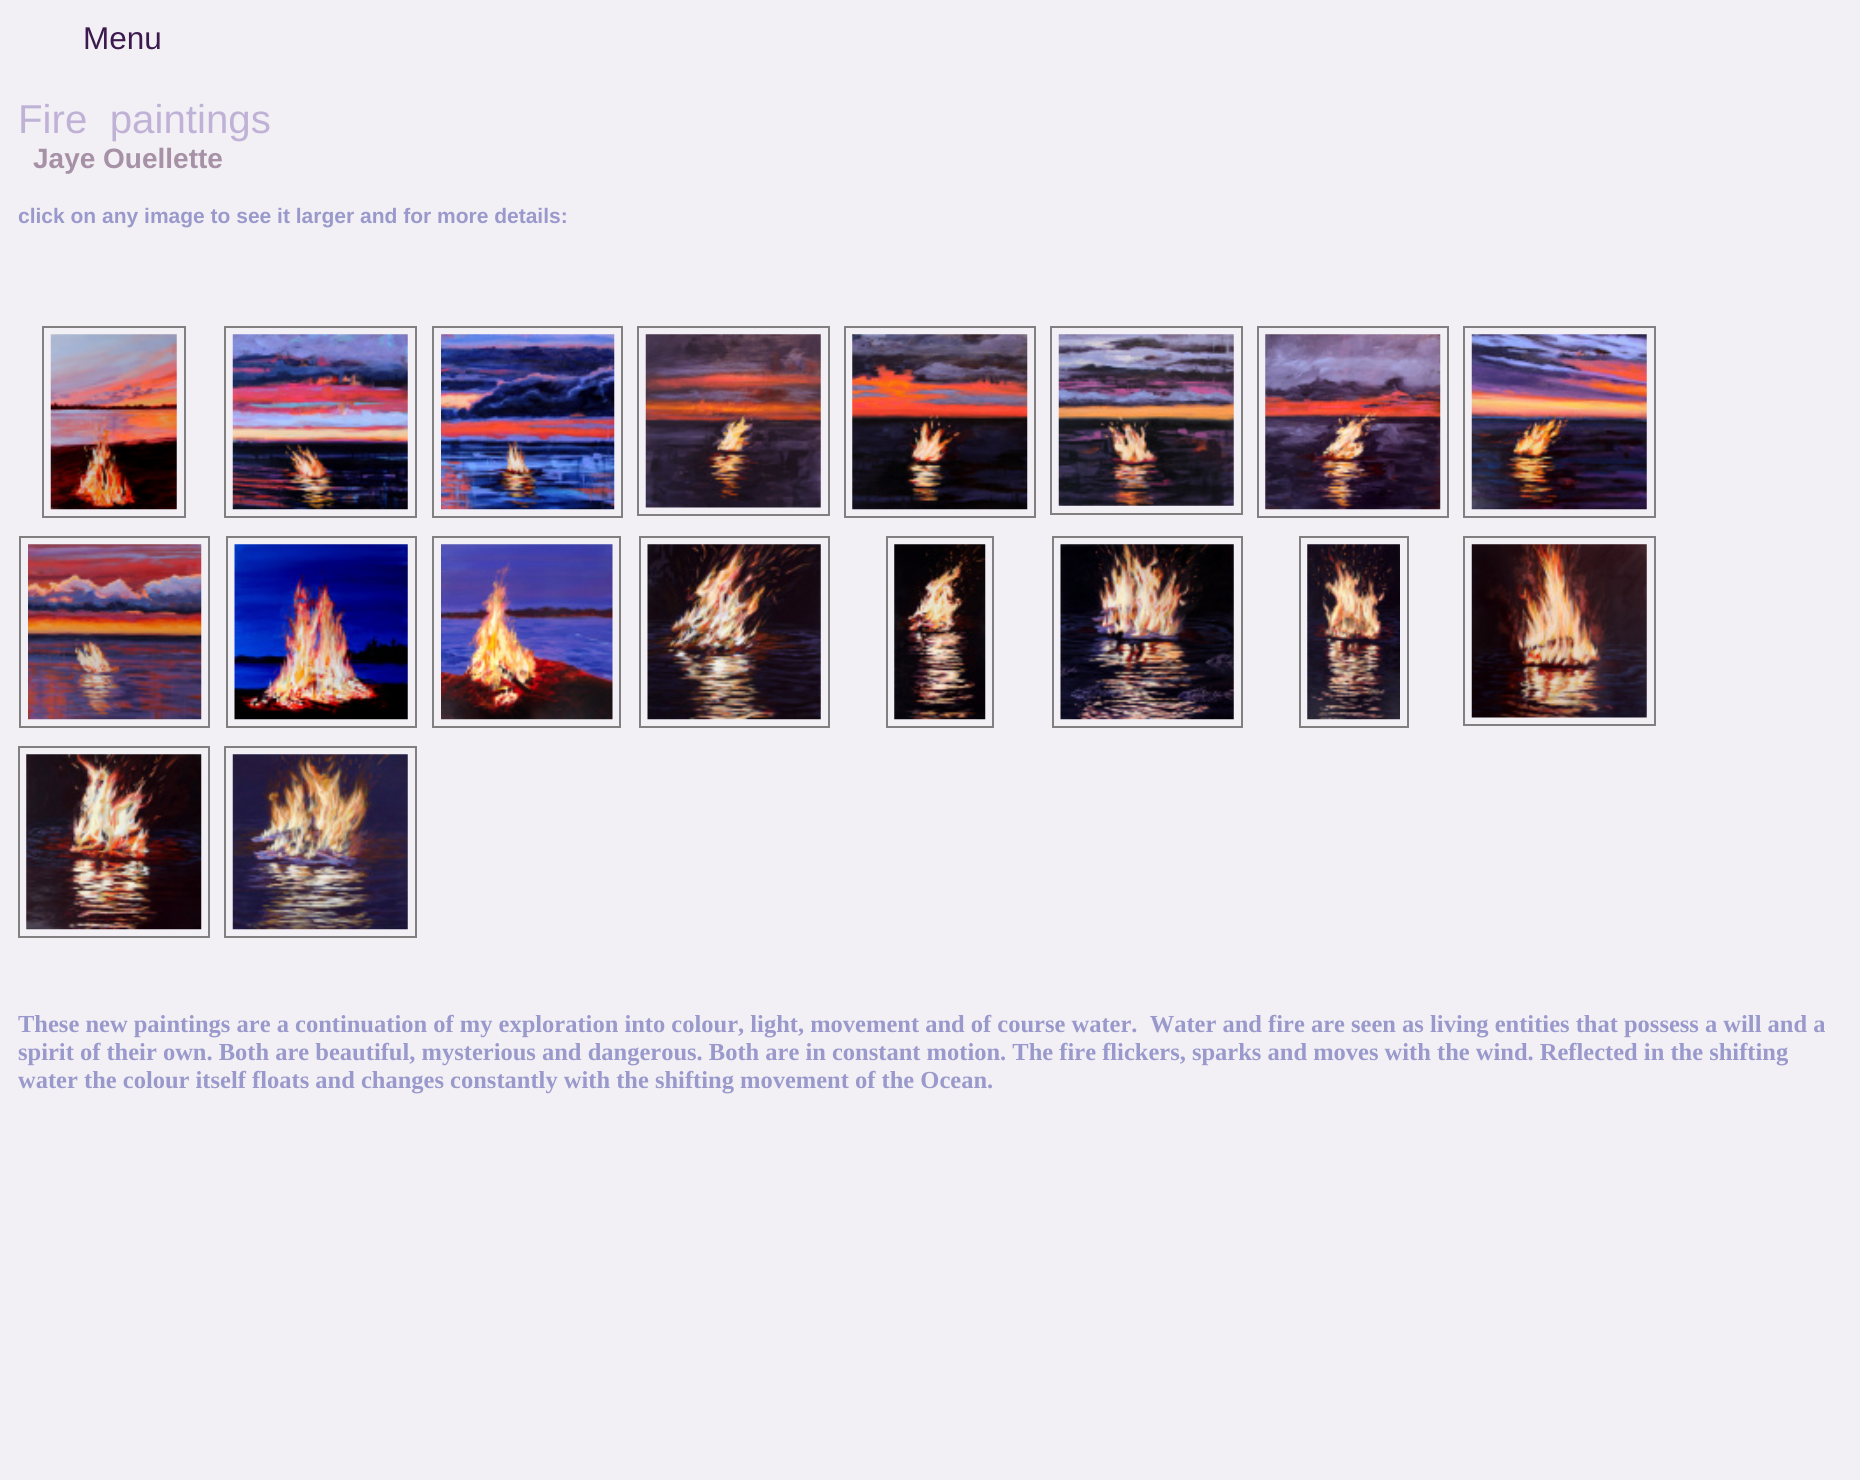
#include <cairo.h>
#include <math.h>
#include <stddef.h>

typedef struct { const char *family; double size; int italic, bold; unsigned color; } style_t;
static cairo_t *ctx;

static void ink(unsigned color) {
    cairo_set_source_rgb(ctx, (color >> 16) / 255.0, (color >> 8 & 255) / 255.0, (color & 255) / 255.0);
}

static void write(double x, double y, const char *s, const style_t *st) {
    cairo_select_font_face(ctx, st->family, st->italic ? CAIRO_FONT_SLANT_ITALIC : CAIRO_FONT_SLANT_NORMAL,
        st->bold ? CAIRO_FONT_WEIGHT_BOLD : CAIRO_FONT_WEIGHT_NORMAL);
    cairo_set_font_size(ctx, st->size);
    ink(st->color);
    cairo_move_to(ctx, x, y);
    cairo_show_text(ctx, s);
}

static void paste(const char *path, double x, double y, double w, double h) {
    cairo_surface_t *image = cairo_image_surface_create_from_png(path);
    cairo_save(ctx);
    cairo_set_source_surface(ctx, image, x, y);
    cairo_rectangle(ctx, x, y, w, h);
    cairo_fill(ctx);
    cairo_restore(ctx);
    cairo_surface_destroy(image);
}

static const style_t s1 = {"Liberation Sans", 31.5, 0, 0, 0x3c1a4d};
static const style_t s2 = {"Liberation Sans", 40.25, 0, 0, 0xc0b2d6};
static const style_t s3 = {"Liberation Sans", 28, 0, 1, 0xa691a6};
static const style_t s4 = {"Liberation Sans", 21, 0, 1, 0x9999cc};
static const style_t s5 = {"Liberation Serif", 24.5, 0, 1, 0x9999cc};

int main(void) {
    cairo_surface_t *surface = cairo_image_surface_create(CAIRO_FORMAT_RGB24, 1860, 1480);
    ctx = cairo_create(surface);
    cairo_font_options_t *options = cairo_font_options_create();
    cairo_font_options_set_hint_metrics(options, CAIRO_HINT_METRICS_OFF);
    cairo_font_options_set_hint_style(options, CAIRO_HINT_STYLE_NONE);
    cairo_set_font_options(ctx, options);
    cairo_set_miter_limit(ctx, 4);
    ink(0xf3f0f5);
    cairo_paint(ctx);
    write(83, 49, "Menu", &s1);
    write(18, 133, "Fire  paintings", &s2);
    write(33, 168, "Jaye Ouellette", &s3);
    write(18, 223, "click on any image to see it larger and for more details:", &s4);
    cairo_rectangle(ctx, 43, 327, 142, 190);
    ink(0x808080);
    cairo_stroke(ctx);
    paste("pic1.png", 50, 334, 127, 176);
    cairo_rectangle(ctx, 225, 327, 191, 190);
    cairo_stroke(ctx);
    paste("pic2.png", 232, 334, 176, 176);
    cairo_rectangle(ctx, 433, 327, 189, 190);
    cairo_stroke(ctx);
    paste("pic3.png", 441, 334, 174, 176);
    cairo_rectangle(ctx, 638, 327, 191, 188);
    cairo_stroke(ctx);
    paste("pic4.png", 645, 334, 176, 174);
    cairo_rectangle(ctx, 845, 327, 190, 190);
    cairo_stroke(ctx);
    paste("pic5.png", 852, 334, 176, 176);
    cairo_rectangle(ctx, 1051, 327, 191, 187);
    cairo_stroke(ctx);
    paste("pic6.png", 1058, 334, 176, 172);
    cairo_rectangle(ctx, 1258, 327, 190, 190);
    cairo_stroke(ctx);
    paste("pic7.png", 1265, 334, 176, 176);
    cairo_rectangle(ctx, 1464, 327, 191, 190);
    cairo_stroke(ctx);
    paste("pic8.png", 1471, 334, 176, 176);
    cairo_rectangle(ctx, 20, 537, 189, 190);
    cairo_stroke(ctx);
    paste("pic9.png", 28, 544, 174, 176);
    cairo_rectangle(ctx, 227, 537, 189, 190);
    cairo_stroke(ctx);
    paste("pic10.png", 234, 544, 174, 176);
    cairo_rectangle(ctx, 433, 537, 187, 190);
    cairo_stroke(ctx);
    paste("pic11.png", 441, 544, 172, 176);
    cairo_rectangle(ctx, 640, 537, 189, 190);
    cairo_stroke(ctx);
    paste("pic12.png", 647, 544, 174, 176);
    cairo_rectangle(ctx, 887, 537, 106, 190);
    cairo_stroke(ctx);
    paste("pic13.png", 894, 544, 92, 176);
    cairo_rectangle(ctx, 1053, 537, 189, 190);
    cairo_stroke(ctx);
    paste("pic14.png", 1060, 544, 174, 176);
    cairo_rectangle(ctx, 1300, 537, 108, 190);
    cairo_stroke(ctx);
    paste("pic15.png", 1307, 544, 93, 176);
    cairo_rectangle(ctx, 1464, 537, 191, 188);
    cairo_stroke(ctx);
    paste("pic16.png", 1471, 544, 176, 174);
    cairo_rectangle(ctx, 19, 747, 190, 190);
    cairo_stroke(ctx);
    paste("pic17.png", 26, 754, 176, 176);
    cairo_rectangle(ctx, 225, 747, 191, 190);
    cairo_stroke(ctx);
    paste("pic18.png", 232, 754, 176, 176);
    write(18, 1032, "These new paintings are a continuation of my exploration into colour, light, movement and of course water.  Water and fire are seen as living entities that possess a will and a", &s5);
    write(18, 1060, "spirit of their own. Both are beautiful, mysterious and dangerous. Both are in constant motion. The fire flickers, sparks and moves with the wind. Reflected in the shifting", &s5);
    write(18, 1088, "water the colour itself floats and changes constantly with the shifting movement of the Ocean.", &s5);
    cairo_surface_write_to_png(surface, "screenshot.png");
    cairo_font_options_destroy(options);
    cairo_destroy(ctx);
    cairo_surface_destroy(surface);
    return 0;
}
